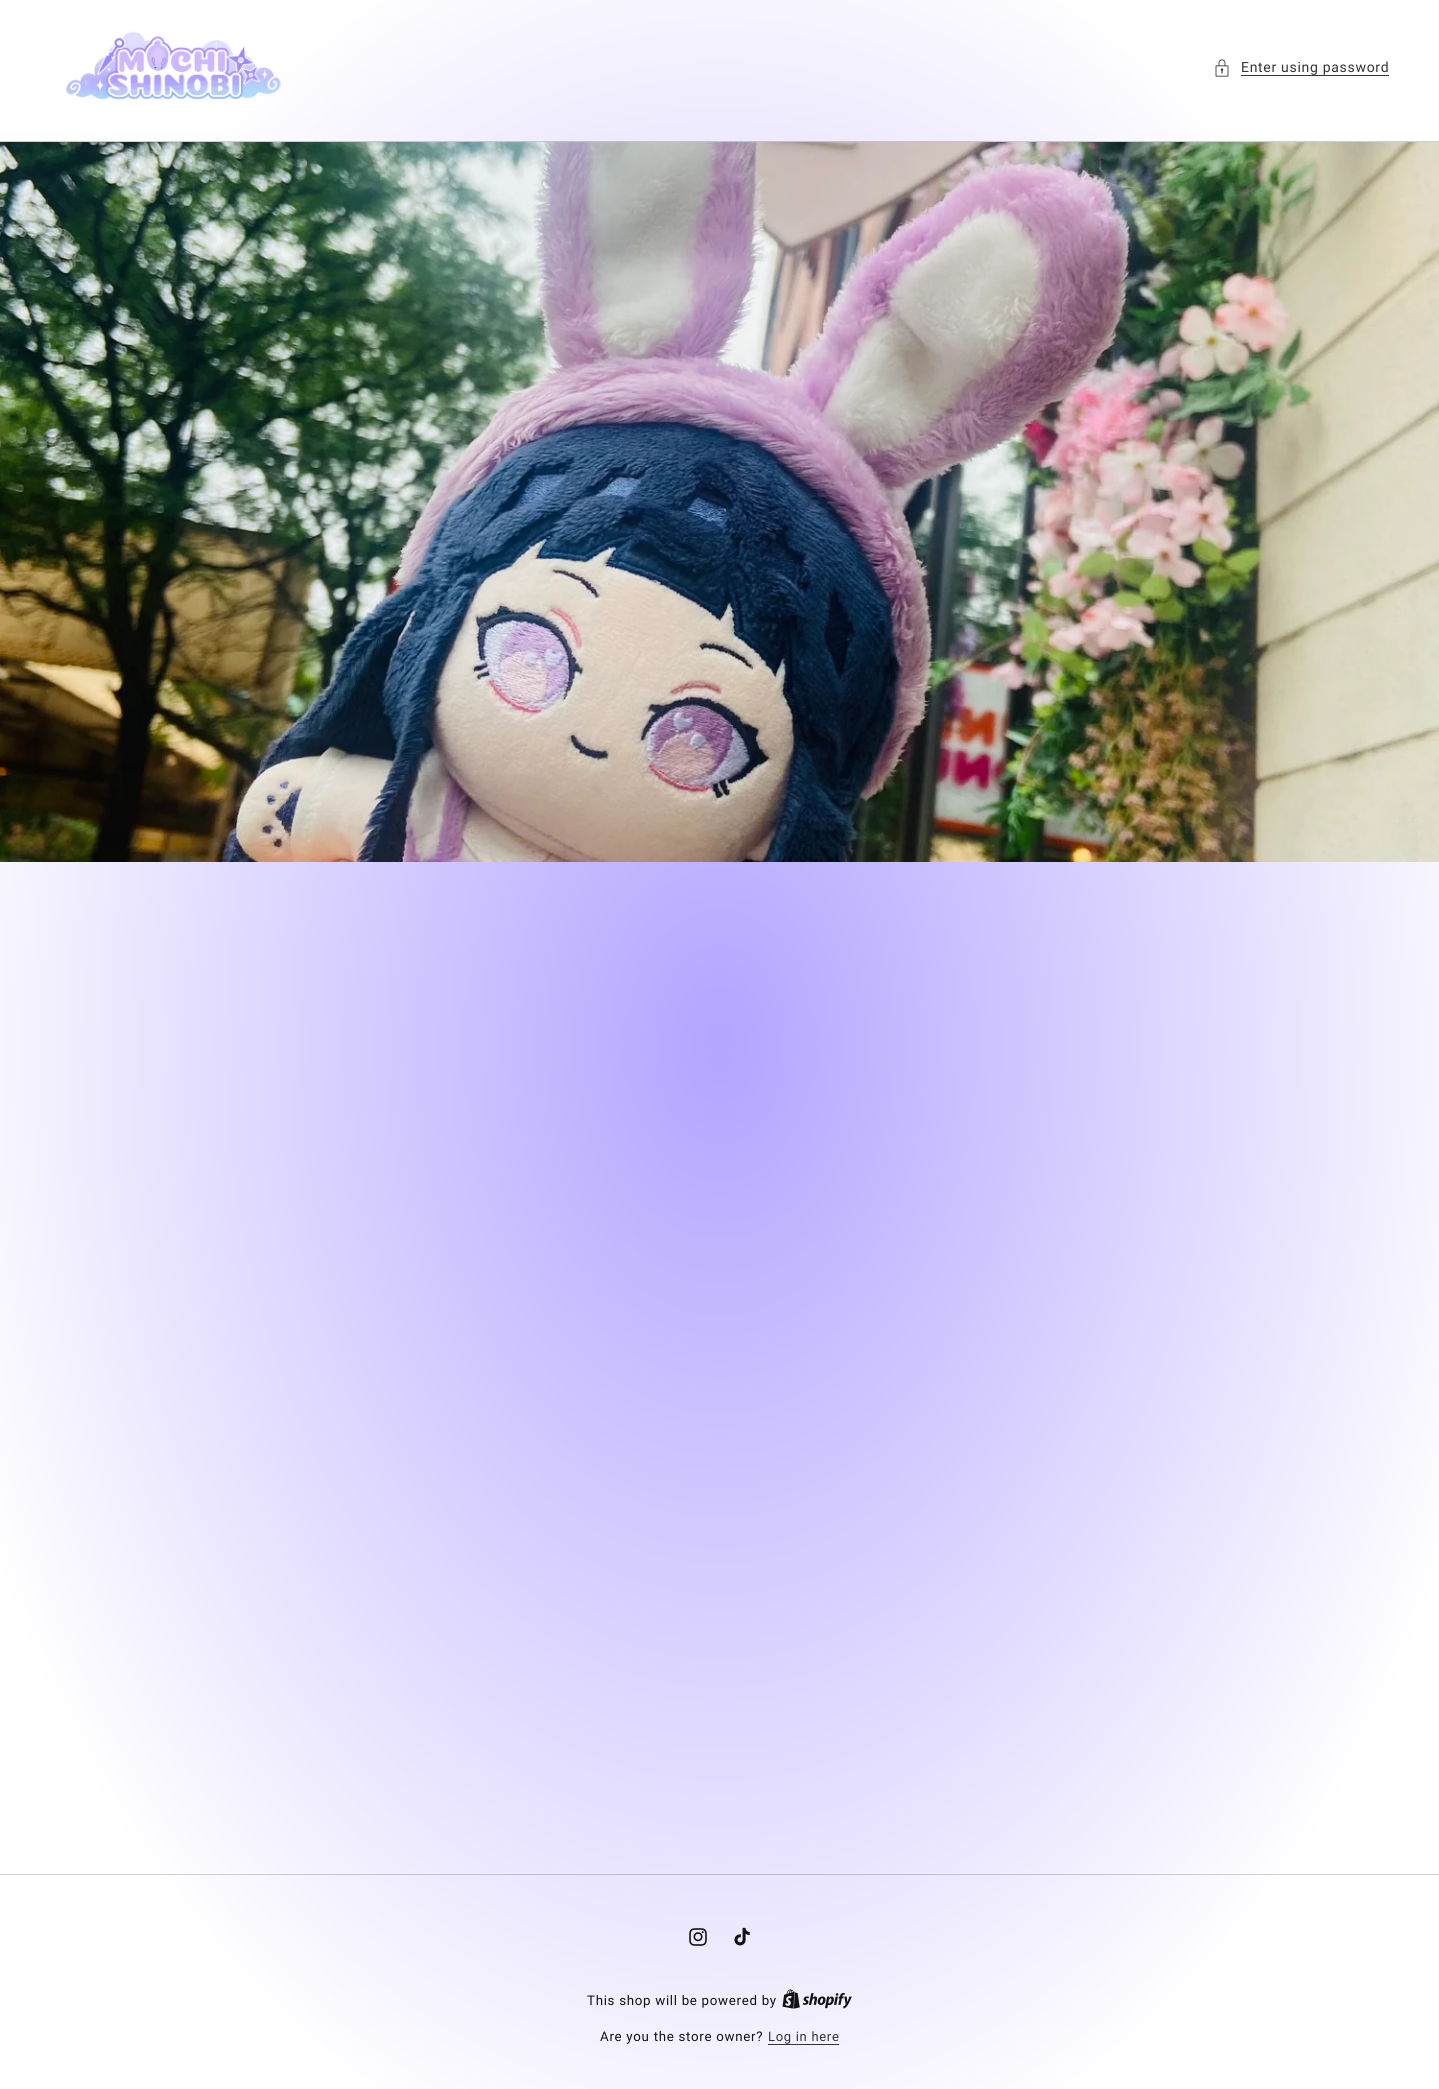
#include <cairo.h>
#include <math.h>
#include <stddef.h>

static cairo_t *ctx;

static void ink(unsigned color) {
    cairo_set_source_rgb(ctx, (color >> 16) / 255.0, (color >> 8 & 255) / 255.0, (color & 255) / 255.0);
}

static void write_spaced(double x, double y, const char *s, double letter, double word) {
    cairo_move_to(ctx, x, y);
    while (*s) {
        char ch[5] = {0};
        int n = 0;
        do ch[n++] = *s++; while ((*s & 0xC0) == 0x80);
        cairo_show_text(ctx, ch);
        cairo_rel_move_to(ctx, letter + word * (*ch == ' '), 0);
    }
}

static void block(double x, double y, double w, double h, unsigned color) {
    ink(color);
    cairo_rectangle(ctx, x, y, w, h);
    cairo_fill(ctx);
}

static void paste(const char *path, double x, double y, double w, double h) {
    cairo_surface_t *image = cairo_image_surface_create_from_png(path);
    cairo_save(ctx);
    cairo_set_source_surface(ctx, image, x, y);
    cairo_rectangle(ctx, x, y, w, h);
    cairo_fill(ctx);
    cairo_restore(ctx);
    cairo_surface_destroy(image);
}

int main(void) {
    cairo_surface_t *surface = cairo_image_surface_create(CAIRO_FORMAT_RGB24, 1439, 2089);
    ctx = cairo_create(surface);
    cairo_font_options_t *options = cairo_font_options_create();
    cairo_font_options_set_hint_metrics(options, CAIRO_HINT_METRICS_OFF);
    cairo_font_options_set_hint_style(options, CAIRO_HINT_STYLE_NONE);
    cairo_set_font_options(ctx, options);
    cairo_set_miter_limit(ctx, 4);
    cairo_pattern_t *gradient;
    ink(0xffffff);
    cairo_paint(ctx);
    gradient = cairo_pattern_create_radial(0, 0, 0, 0, 0, 1);
    cairo_pattern_set_matrix(gradient, &(cairo_matrix_t){1.0 / 1018, 0, 0, 1.0 / 1477, -1.0 * 720 / 1018, -1.0 * 1045 / 1477});
    cairo_pattern_add_color_stop_rgba(gradient, 0, 0.702, 0.643, 1, 1);
    cairo_pattern_add_color_stop_rgba(gradient, 0.79, 1, 1, 1, 1);
    cairo_pattern_add_color_stop_rgba(gradient, 0.97, 1, 1, 1, 1);
    cairo_set_source(ctx, gradient);
    cairo_pattern_destroy(gradient);
    cairo_rectangle(ctx, 0, 0, 1439, 2089);
    cairo_fill(ctx);
    gradient = cairo_pattern_create_radial(0, 0, 0, 0, 0, 1);
    cairo_pattern_set_matrix(gradient, &(cairo_matrix_t){1.0 / 1018, 0, 0, 1.0 / 1477, -1.0 * 720 / 1018, -1.0 * 1045 / 1477});
    cairo_pattern_add_color_stop_rgba(gradient, 0, 0.576, 0.529, 0.816, 1);
    cairo_pattern_add_color_stop_rgba(gradient, 0.79, 0.816, 0.816, 0.816, 1);
    cairo_pattern_add_color_stop_rgba(gradient, 0.97, 0.816, 0.816, 0.816, 1);
    cairo_set_source(ctx, gradient);
    cairo_pattern_destroy(gradient);
    cairo_rectangle(ctx, 0, 1874, 1439, 1);
    cairo_fill(ctx);
    cairo_rectangle(ctx, 0, 141, 1439, 1);
    cairo_fill(ctx);
    paste("pic1.png", 66, 31, 215, 69);
    paste("pic2.png", 1215, 59, 14, 18);
    cairo_select_font_face(ctx, "Roboto", CAIRO_FONT_SLANT_NORMAL, CAIRO_FONT_WEIGHT_NORMAL);
    cairo_set_font_size(ctx, 14);
    ink(0x343436);
    write_spaced(1241, 72, "Enter using password", 0.7, 0);
    block(1241, 75, 148, 1, 0x363636);
    paste("pic3.png", 0, 142, 1439, 720);
    paste("pic4.png", 689, 1928, 18, 18);
    paste("pic5.png", 734, 1927, 16, 19);
    cairo_set_font_size(ctx, 13.3);
    ink(0x121212);
    write_spaced(587, 2005, "This shop will be powered by", 0.7, 0);
    paste("pic6.png", 782, 1989, 70, 20);
    write_spaced(600, 2041, "Are you the store owner?", 0.7, 0);
    cairo_set_font_size(ctx, 13);
    ink(0x343436);
    write_spaced(768, 2041, "Log in here", 0.7, 0);
    block(768, 2044, 71, 1, 0x343436);
    cairo_surface_write_to_png(surface, "screenshot.png");
    cairo_font_options_destroy(options);
    cairo_destroy(ctx);
    cairo_surface_destroy(surface);
    return 0;
}
